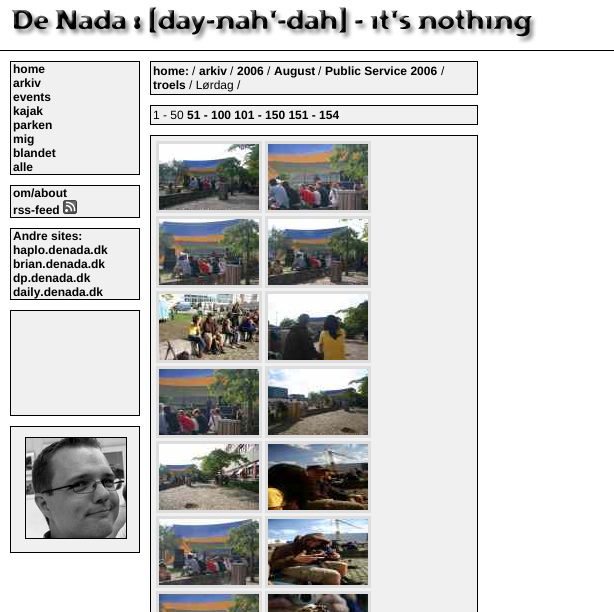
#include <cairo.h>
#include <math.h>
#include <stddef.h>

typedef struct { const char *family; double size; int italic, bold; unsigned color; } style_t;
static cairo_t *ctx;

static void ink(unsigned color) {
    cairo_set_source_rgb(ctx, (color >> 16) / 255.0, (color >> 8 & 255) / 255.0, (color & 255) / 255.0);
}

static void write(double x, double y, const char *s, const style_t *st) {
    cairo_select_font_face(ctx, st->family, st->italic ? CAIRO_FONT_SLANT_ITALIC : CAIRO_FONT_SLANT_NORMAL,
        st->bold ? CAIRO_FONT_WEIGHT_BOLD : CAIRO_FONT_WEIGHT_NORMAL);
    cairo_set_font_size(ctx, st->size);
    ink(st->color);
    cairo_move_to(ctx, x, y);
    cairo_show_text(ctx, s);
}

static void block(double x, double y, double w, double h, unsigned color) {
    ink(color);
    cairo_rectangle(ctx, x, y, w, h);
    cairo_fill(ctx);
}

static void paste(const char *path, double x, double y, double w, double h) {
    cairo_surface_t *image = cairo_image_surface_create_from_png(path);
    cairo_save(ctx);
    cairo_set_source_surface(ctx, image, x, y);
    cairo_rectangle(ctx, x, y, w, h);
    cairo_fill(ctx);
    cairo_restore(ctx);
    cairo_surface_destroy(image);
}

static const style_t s1 = {"Liberation Sans", 12, 0, 1, 0x000000};
static const style_t s2 = {"Liberation Sans", 12, 0, 0, 0x000000};

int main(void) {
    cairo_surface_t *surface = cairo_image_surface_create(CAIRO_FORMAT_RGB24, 614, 612);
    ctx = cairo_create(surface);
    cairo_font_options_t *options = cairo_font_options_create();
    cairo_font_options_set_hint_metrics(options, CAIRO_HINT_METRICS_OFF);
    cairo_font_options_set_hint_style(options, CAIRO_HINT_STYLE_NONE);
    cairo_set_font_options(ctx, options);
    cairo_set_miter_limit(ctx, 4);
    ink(0xffffff);
    cairo_paint(ctx);
    block(0, 50, 614, 1, 0x000000);
    paste("pic1.png", 8, 0, 529, 44);
    ink(0xf0f0f0);
    cairo_rectangle(ctx, 10.5, 61.5, 129, 113);
    cairo_fill_preserve(ctx);
    ink(0x000000);
    cairo_set_line_width(ctx, 1);
    cairo_stroke(ctx);
    write(13, 73, "home", &s1);
    write(13, 87, "arkiv", &s1);
    write(13, 101, "events", &s1);
    write(13, 115, "kajak", &s1);
    write(13, 129, "parken", &s1);
    write(13, 143, "mig", &s1);
    write(13, 157, "blandet", &s1);
    write(13, 171, "alle", &s1);
    ink(0xf0f0f0);
    cairo_rectangle(ctx, 10.5, 185.5, 129, 32);
    cairo_fill_preserve(ctx);
    ink(0x000000);
    cairo_stroke(ctx);
    write(13, 197, "om/about", &s1);
    write(13, 214, "rss-feed", &s1);
    paste("pic2.png", 63, 200, 14, 14);
    ink(0xf0f0f0);
    cairo_rectangle(ctx, 10.5, 228.5, 129, 71);
    cairo_fill_preserve(ctx);
    ink(0x000000);
    cairo_stroke(ctx);
    write(13, 240, "Andre sites:", &s1);
    write(13, 254, "haplo.denada.dk", &s1);
    write(13, 268, "brian.denada.dk", &s1);
    write(13, 282, "dp.denada.dk", &s1);
    write(13, 296, "daily.denada.dk", &s1);
    ink(0xf0f0f0);
    cairo_rectangle(ctx, 10.5, 310.5, 129, 105);
    cairo_fill_preserve(ctx);
    ink(0x000000);
    cairo_stroke(ctx);
    ink(0xf0f0f0);
    cairo_rectangle(ctx, 10.5, 426.5, 129, 126);
    cairo_fill_preserve(ctx);
    ink(0x000000);
    cairo_stroke(ctx);
    cairo_rectangle(ctx, 25.5, 437.5, 101, 101);
    cairo_stroke(ctx);
    paste("pic3.png", 26, 438, 100, 100);
    ink(0xf0f0f0);
    cairo_rectangle(ctx, 150.5, 61.5, 327, 33);
    cairo_fill_preserve(ctx);
    ink(0x000000);
    cairo_stroke(ctx);
    write(153, 75, "home:", &s1);
    write(192, 75, "/", &s2);
    write(199, 75, "arkiv", &s1);
    write(230, 75, "/", &s2);
    write(237, 75, "2006", &s1);
    write(267, 75, "/", &s2);
    write(274, 75, "August", &s1);
    write(318, 75, "/", &s2);
    write(325, 75, "Public Service 2006", &s1);
    write(441, 75, "/", &s2);
    write(153, 89, "troels", &s1);
    write(189, 89, "/ Lørdag /", &s2);
    ink(0xf0f0f0);
    cairo_rectangle(ctx, 150.5, 105.5, 327, 19);
    cairo_fill_preserve(ctx);
    ink(0x000000);
    cairo_stroke(ctx);
    write(153, 119, "1 - 50", &s2);
    write(187, 119, "51 - 100 101 - 150 151 - 154", &s1);
    ink(0xf0f0f0);
    cairo_rectangle(ctx, 150.5, 135.5, 327, 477);
    cairo_fill_preserve(ctx);
    ink(0x000000);
    cairo_stroke(ctx);
    cairo_rectangle(ctx, 157.5, 142.5, 103, 69);
    ink(0xdddddd);
    cairo_set_line_width(ctx, 3);
    cairo_stroke(ctx);
    cairo_rectangle(ctx, 266.5, 142.5, 103, 69);
    cairo_stroke(ctx);
    paste("pic4.png", 159, 144, 100, 66);
    paste("pic5.png", 268, 144, 100, 66);
    cairo_rectangle(ctx, 157.5, 217.5, 103, 69);
    cairo_stroke(ctx);
    cairo_rectangle(ctx, 266.5, 217.5, 103, 69);
    cairo_stroke(ctx);
    paste("pic6.png", 159, 219, 100, 66);
    paste("pic7.png", 268, 219, 100, 66);
    cairo_rectangle(ctx, 157.5, 292.5, 103, 69);
    cairo_stroke(ctx);
    cairo_rectangle(ctx, 266.5, 292.5, 103, 69);
    cairo_stroke(ctx);
    paste("pic8.png", 159, 294, 100, 66);
    paste("pic9.png", 268, 294, 100, 66);
    cairo_rectangle(ctx, 157.5, 367.5, 103, 69);
    cairo_stroke(ctx);
    cairo_rectangle(ctx, 266.5, 367.5, 103, 69);
    cairo_stroke(ctx);
    paste("pic10.png", 159, 369, 100, 66);
    paste("pic11.png", 268, 369, 100, 66);
    cairo_rectangle(ctx, 157.5, 442.5, 103, 69);
    cairo_stroke(ctx);
    cairo_rectangle(ctx, 266.5, 442.5, 103, 69);
    cairo_stroke(ctx);
    paste("pic12.png", 159, 444, 100, 66);
    paste("pic13.png", 268, 444, 100, 66);
    cairo_rectangle(ctx, 157.5, 517.5, 103, 69);
    cairo_stroke(ctx);
    cairo_rectangle(ctx, 266.5, 517.5, 103, 69);
    cairo_stroke(ctx);
    paste("pic14.png", 159, 519, 100, 66);
    paste("pic15.png", 268, 519, 100, 66);
    cairo_rectangle(ctx, 157.5, 592.5, 103, 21);
    cairo_stroke(ctx);
    cairo_rectangle(ctx, 266.5, 592.5, 103, 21);
    cairo_stroke(ctx);
    paste("pic16.png", 159, 594, 100, 18);
    paste("pic17.png", 268, 594, 100, 18);
    cairo_surface_write_to_png(surface, "screenshot.png");
    cairo_font_options_destroy(options);
    cairo_destroy(ctx);
    cairo_surface_destroy(surface);
    return 0;
}
